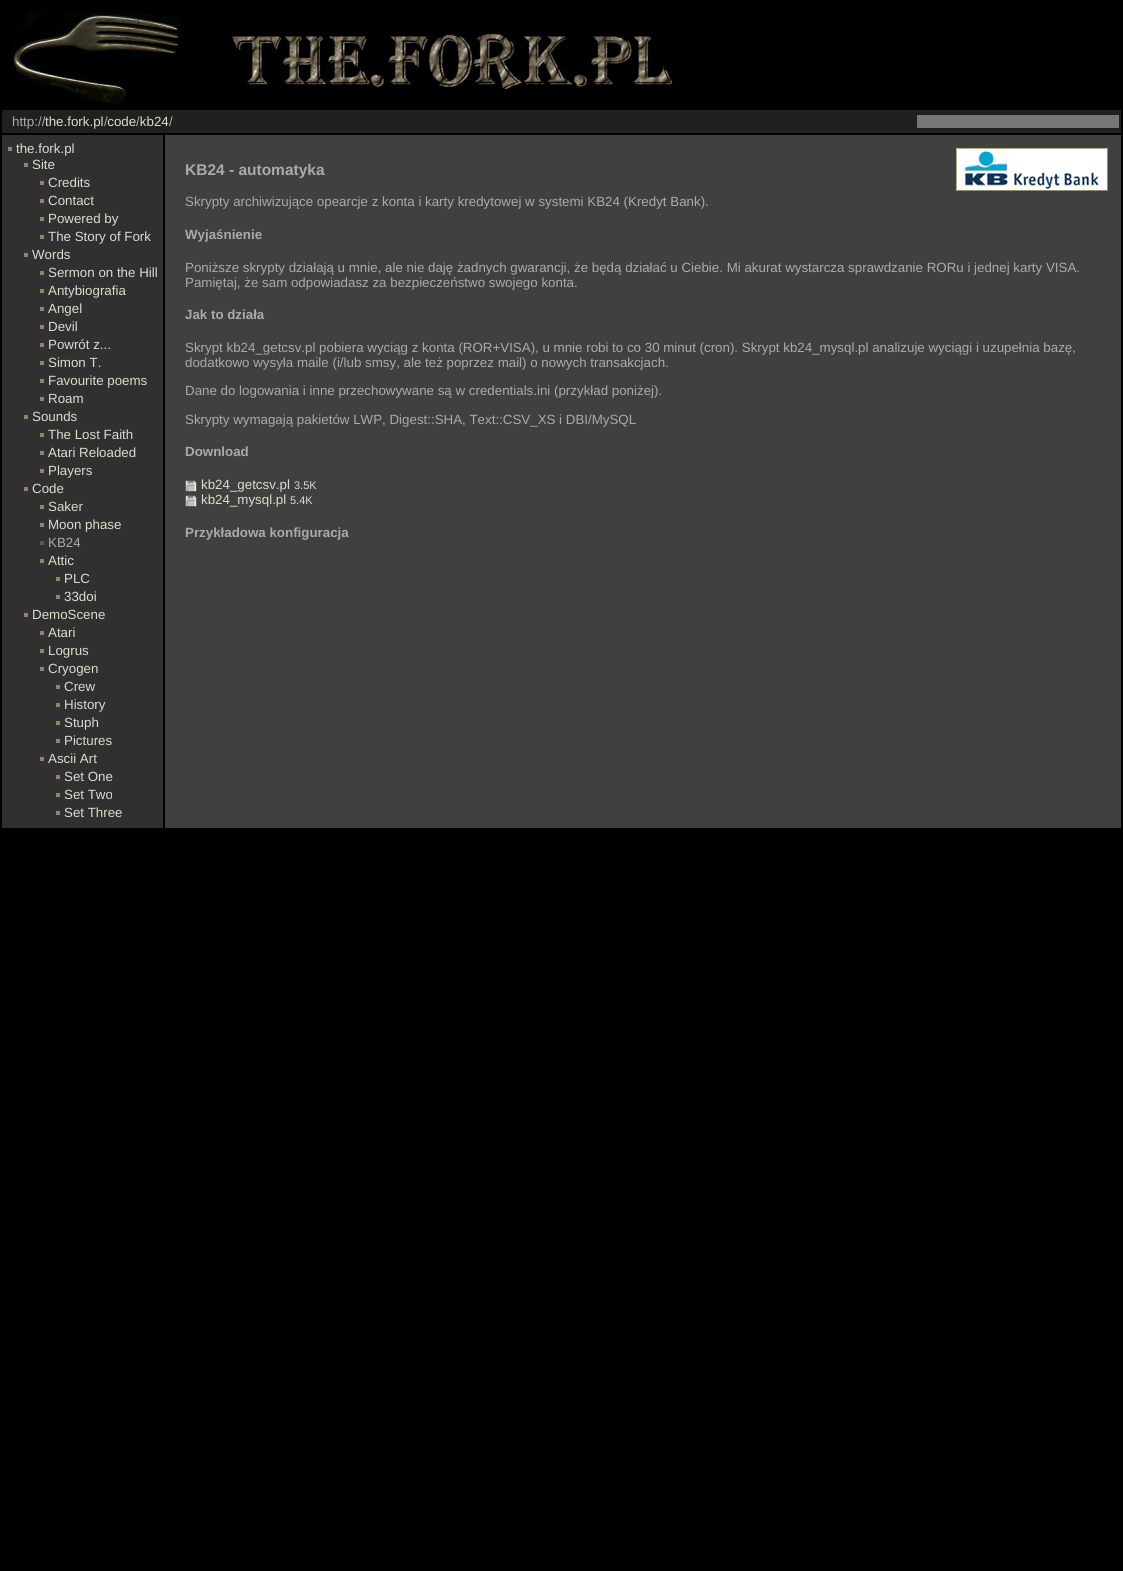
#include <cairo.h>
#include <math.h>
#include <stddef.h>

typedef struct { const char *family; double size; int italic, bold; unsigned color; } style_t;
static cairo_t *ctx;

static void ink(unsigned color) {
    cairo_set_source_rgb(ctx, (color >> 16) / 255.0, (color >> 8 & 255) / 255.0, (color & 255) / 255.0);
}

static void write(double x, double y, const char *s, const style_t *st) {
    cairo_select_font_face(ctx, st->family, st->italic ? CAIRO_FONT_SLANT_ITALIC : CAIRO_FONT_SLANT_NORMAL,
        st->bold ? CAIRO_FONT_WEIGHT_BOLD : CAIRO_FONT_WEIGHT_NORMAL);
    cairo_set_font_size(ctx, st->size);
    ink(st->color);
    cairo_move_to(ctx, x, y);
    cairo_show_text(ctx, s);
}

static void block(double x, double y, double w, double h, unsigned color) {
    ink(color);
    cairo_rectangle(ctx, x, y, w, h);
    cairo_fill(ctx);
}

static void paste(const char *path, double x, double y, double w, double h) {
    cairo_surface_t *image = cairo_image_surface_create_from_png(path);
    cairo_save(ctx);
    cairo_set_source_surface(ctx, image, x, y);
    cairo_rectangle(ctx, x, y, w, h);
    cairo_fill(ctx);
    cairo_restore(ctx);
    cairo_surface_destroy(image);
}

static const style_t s1 = {"Liberation Sans", 13.33, 0, 0, 0xaaaaaa};
static const style_t s2 = {"Liberation Sans", 13.33, 0, 0, 0xd8ddcc};
static const style_t s3 = {"Liberation Sans", 15.5, 0, 1, 0xaaaaaa};
static const style_t s4 = {"Liberation Sans", 13.33, 0, 1, 0xaaaaaa};
static const style_t s5 = {"Liberation Sans", 11, 0, 0, 0xd8ddcc};

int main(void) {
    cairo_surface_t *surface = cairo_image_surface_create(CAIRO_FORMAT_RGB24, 1123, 1571);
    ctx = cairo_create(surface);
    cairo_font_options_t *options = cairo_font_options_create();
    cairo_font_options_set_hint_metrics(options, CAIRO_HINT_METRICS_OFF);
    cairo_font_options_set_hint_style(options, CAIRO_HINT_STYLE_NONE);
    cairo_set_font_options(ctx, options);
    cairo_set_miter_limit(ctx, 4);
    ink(0x000000);
    cairo_paint(ctx);
    paste("pic1.png", 12, 12, 661, 92);
    block(2, 110, 1119, 23, 0x202020);
    write(12, 126, "http://", &s1);
    write(45, 126, "the.fork.pl code kb24", &s2);
    write(104, 126, "/", &s1);
    write(136, 126, "/", &s1);
    write(169, 126, "/", &s1);
    block(917, 115, 202, 13, 0x777777);
    block(2, 135, 161, 693, 0x303030);
    block(8, 147, 4, 4, 0x978369);
    write(16, 153, "the.fork.pl", &s2);
    block(24, 163, 4, 4, 0x978369);
    write(32, 169, "Site", &s2);
    block(40, 181, 4, 4, 0x978369);
    write(48, 187, "Credits", &s2);
    block(40, 199, 4, 4, 0x978369);
    write(48, 205, "Contact", &s2);
    block(40, 217, 4, 4, 0x978369);
    write(48, 223, "Powered by", &s2);
    block(40, 235, 4, 4, 0x978369);
    write(48, 241, "The Story of Fork", &s2);
    block(24, 253, 4, 4, 0x978369);
    write(32, 259, "Words", &s2);
    block(40, 271, 4, 4, 0x978369);
    write(48, 277, "Sermon on the Hill", &s2);
    block(40, 289, 4, 4, 0x978369);
    write(48, 295, "Antybiografia", &s2);
    block(40, 307, 4, 4, 0x978369);
    write(48, 313, "Angel", &s2);
    block(40, 325, 4, 4, 0x978369);
    write(48, 331, "Devil", &s2);
    block(40, 343, 4, 4, 0x978369);
    write(48, 349, "Powrót z...", &s2);
    block(40, 361, 4, 4, 0x978369);
    write(48, 367, "Simon T.", &s2);
    block(40, 379, 4, 4, 0x978369);
    write(48, 385, "Favourite poems", &s2);
    block(40, 397, 4, 4, 0x978369);
    write(48, 403, "Roam", &s2);
    block(24, 415, 4, 4, 0x978369);
    write(32, 421, "Sounds", &s2);
    block(40, 433, 4, 4, 0x978369);
    write(48, 439, "The Lost Faith", &s2);
    block(40, 451, 4, 4, 0x978369);
    write(48, 457, "Atari Reloaded", &s2);
    block(40, 469, 4, 4, 0x978369);
    write(48, 475, "Players", &s2);
    block(24, 487, 4, 4, 0x978369);
    write(32, 493, "Code", &s2);
    block(40, 505, 4, 4, 0x978369);
    write(48, 511, "Saker", &s2);
    block(40, 523, 4, 4, 0x978369);
    write(48, 529, "Moon phase", &s2);
    block(40, 541, 4, 4, 0x625544);
    write(48, 547, "KB24", &s1);
    block(40, 559, 4, 4, 0x978369);
    write(48, 565, "Attic", &s2);
    block(56, 577, 4, 4, 0x978369);
    write(64, 583, "PLC", &s2);
    block(56, 595, 4, 4, 0x978369);
    write(64, 601, "33doi", &s2);
    block(24, 613, 4, 4, 0x978369);
    write(32, 619, "DemoScene", &s2);
    block(40, 631, 4, 4, 0x978369);
    write(48, 637, "Atari", &s2);
    block(40, 649, 4, 4, 0x978369);
    write(48, 655, "Logrus", &s2);
    block(40, 667, 4, 4, 0x978369);
    write(48, 673, "Cryogen", &s2);
    block(56, 685, 4, 4, 0x978369);
    write(64, 691, "Crew", &s2);
    block(56, 703, 4, 4, 0x978369);
    write(64, 709, "History", &s2);
    block(56, 721, 4, 4, 0x978369);
    write(64, 727, "Stuph", &s2);
    block(56, 739, 4, 4, 0x978369);
    write(64, 745, "Pictures", &s2);
    block(40, 757, 4, 4, 0x978369);
    write(48, 763, "Ascii Art", &s2);
    block(56, 775, 4, 4, 0x978369);
    write(64, 781, "Set One", &s2);
    block(56, 793, 4, 4, 0x978369);
    write(64, 799, "Set Two", &s2);
    block(56, 811, 4, 4, 0x978369);
    write(64, 817, "Set Three", &s2);
    block(165, 135, 956, 693, 0x404040);
    write(185, 175, "KB24 - automatyka", &s3);
    block(956, 148, 152, 1, 0xb0b090);
    block(1107, 148, 1, 43, 0x909070);
    block(956, 190, 152, 1, 0x909070);
    block(956, 148, 1, 43, 0xb0b090);
    paste("pic2.png", 957, 149, 150, 41);
    write(185, 206, "Skrypty archiwizujące opearcje z konta i karty kredytowej w systemi KB24 (Kredyt Bank).", &s1);
    write(185, 239, "Wyjaśnienie", &s4);
    write(185, 272, "Poniższe skrypty działają u mnie, ale nie daję żadnych gwarancji, że będą działać u Ciebie. Mi akurat wystarcza sprawdzanie RORu i jednej karty VISA.", &s1);
    write(185, 287, "Pamiętaj, że sam odpowiadasz za bezpieczeństwo swojego konta.", &s1);
    write(185, 319, "Jak to działa", &s4);
    write(185, 352, "Skrypt kb24_getcsv.pl pobiera wyciąg z konta (ROR+VISA), u mnie robi to co 30 minut (cron). Skrypt kb24_mysql.pl analizuje wyciągi i uzupełnia bazę,", &s1);
    write(185, 367, "dodatkowo wysyła maile (i/lub smsy, ale też poprzez mail) o nowych transakcjach.", &s1);
    write(185, 395, "Dane do logowania i inne przechowywane są w credentials.ini (przykład poniżej).", &s1);
    write(185, 424, "Skrypty wymagają pakietów LWP, Digest::SHA, Text::CSV_XS i DBI/MySQL", &s1);
    write(185, 456, "Download", &s4);
    paste("pic3.png", 185, 480, 12, 12);
    write(201, 489, "kb24_getcsv.pl", &s2);
    write(294, 489, "3.5K", &s5);
    paste("pic3.png", 185, 495, 12, 12);
    write(201, 504, "kb24_mysql.pl", &s2);
    write(290, 504, "5.4K", &s5);
    write(185, 537, "Przykładowa konfiguracja", &s4);
    cairo_surface_write_to_png(surface, "screenshot.png");
    cairo_font_options_destroy(options);
    cairo_destroy(ctx);
    cairo_surface_destroy(surface);
    return 0;
}
